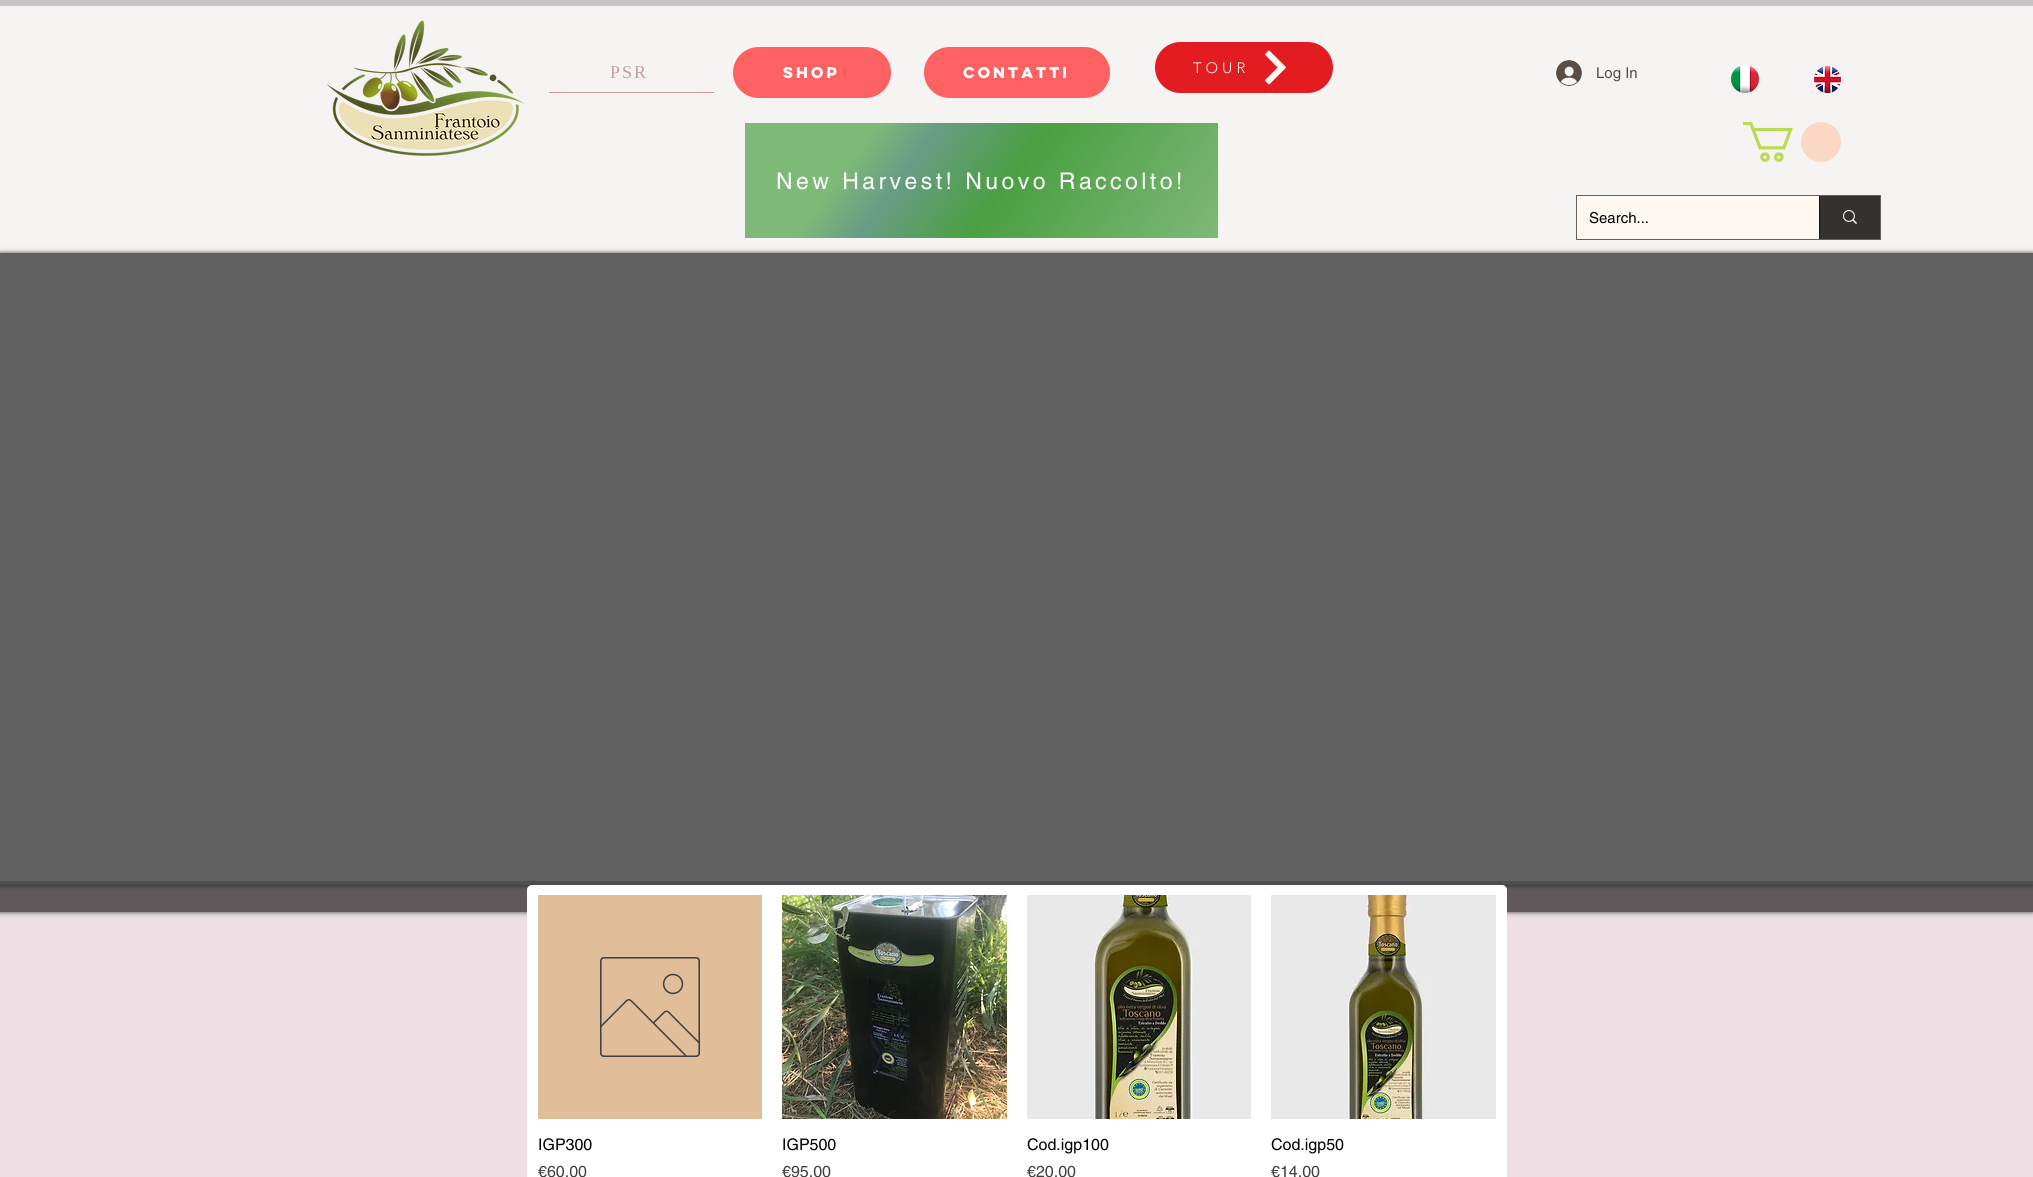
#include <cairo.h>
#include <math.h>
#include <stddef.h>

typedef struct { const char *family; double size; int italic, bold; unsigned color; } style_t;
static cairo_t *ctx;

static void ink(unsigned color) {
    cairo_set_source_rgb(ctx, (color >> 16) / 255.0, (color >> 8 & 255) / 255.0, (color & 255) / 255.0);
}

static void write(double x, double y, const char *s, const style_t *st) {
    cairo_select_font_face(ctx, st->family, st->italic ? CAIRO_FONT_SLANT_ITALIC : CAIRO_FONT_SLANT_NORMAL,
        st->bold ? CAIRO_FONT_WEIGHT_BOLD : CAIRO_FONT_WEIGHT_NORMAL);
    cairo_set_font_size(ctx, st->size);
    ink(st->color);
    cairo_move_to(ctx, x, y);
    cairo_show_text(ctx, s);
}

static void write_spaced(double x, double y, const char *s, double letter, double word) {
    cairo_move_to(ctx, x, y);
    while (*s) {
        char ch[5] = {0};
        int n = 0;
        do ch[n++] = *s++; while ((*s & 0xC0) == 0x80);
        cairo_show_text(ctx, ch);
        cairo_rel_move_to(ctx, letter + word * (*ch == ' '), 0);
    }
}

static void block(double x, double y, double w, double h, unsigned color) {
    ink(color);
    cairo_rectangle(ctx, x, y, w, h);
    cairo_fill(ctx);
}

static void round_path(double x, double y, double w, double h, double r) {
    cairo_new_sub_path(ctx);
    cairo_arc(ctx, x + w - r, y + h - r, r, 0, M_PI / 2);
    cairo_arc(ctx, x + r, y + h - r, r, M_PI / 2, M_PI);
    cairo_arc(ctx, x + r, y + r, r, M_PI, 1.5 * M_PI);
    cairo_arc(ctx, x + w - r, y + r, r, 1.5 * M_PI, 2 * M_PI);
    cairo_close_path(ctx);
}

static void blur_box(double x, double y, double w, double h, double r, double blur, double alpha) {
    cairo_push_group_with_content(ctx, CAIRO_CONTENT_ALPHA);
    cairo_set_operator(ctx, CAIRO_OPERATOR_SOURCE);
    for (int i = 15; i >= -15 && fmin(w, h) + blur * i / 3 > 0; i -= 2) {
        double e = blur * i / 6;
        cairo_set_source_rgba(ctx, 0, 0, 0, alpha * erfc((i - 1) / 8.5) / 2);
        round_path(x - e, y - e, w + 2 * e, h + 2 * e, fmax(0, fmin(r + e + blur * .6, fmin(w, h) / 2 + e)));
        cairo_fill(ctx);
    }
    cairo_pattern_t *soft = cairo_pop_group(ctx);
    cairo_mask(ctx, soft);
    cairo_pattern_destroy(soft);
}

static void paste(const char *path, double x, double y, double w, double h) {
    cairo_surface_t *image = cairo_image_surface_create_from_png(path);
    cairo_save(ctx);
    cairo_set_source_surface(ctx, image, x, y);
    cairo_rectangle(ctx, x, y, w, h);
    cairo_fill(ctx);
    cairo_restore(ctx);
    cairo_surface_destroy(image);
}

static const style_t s1 = {"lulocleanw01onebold", 14, 0, 1, 0xffffff};
static const style_t s2 = {"helvetica", 15, 0, 0, 0x5b4d43};
static const style_t s3 = {"helvetica", 15, 0, 0, 0x000000};
static const style_t s4 = {"helvetica", 16, 0, 0, 0x000000};
static const style_t s5 = {"helvetica", 16, 0, 0, 0x404040};

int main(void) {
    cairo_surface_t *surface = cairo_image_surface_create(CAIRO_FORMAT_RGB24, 2033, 1177);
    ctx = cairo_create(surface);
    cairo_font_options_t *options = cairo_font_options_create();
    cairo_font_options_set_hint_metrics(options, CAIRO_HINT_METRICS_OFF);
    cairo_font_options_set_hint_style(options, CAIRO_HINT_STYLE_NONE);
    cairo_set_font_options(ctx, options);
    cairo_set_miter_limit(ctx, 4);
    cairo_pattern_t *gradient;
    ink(0xeddfe4);
    cairo_paint(ctx);
    block(0, 885, 2033, 27, 0x5f595b);
    ink(0x000000);
    blur_box(0, 0, 2033, 885, 0, 2.5, 0.7);
    block(0, 6, 2033, 247, 0xf6f3f3);
    block(0, 253, 2033, 628, 0x626161);
    block(0, 0, 2033, 6, 0xc6c4c4);
    block(0, 881, 2033, 4, 0x4f4e4e);
    paste("pic1.png", 326, 20, 199, 136);
    block(549, 92, 165, 1, 0xc29f9d);
    cairo_select_font_face(ctx, "Liberation Serif", CAIRO_FONT_SLANT_NORMAL, CAIRO_FONT_WEIGHT_NORMAL);
    cairo_set_font_size(ctx, 18);
    write_spaced(610, 78, "PSR", 2, 0);
    ink(0xfe6161);
    round_path(733, 47, 158, 51, 25.5);
    cairo_fill(ctx);
    write(783, 78, "Shop", &s1);
    ink(0xfe6161);
    round_path(924, 47, 186, 51, 25.5);
    cairo_fill(ctx);
    write(963, 78, "Contatti", &s1);
    ink(0xe21c21);
    round_path(1155, 42, 178, 51, 25.5);
    cairo_fill(ctx);
    cairo_select_font_face(ctx, "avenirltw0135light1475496 Light", CAIRO_FONT_SLANT_NORMAL, CAIRO_FONT_WEIGHT_NORMAL);
    cairo_set_font_size(ctx, 15);
    ink(0xfff8f1);
    write_spaced(1193, 73, "TOUR", 4, 0);
    paste("pic2.png", 1265, 50, 21, 35);
    paste("pic3.png", 1556, 60, 26, 26);
    write(1596, 78, "Log In", &s2);
    paste("pic4.png", 1731, 65, 28, 28);
    paste("pic5.png", 1814, 66, 27, 27);
    paste("pic6.png", 1743, 122, 98, 40);
    gradient = cairo_pattern_create_linear(799, 48, 1164, 313);
    cairo_pattern_add_color_stop_rgba(gradient, 0.24, 0.494, 0.725, 0.471, 1);
    cairo_pattern_add_color_stop_rgba(gradient, 0.35, 0.408, 0.616, 0.522, 1);
    cairo_pattern_add_color_stop_rgba(gradient, 0.55, 0.294, 0.624, 0.259, 1);
    cairo_pattern_add_color_stop_rgba(gradient, 1, 0.494, 0.725, 0.471, 1);
    cairo_set_source(ctx, gradient);
    cairo_pattern_destroy(gradient);
    cairo_rectangle(ctx, 745, 123, 473, 115);
    cairo_fill(ctx);
    cairo_set_font_size(ctx, 23);
    ink(0xffffff);
    write_spaced(776, 189, "New Harvest! Nuovo Raccolto!", 3.45, 0);
    cairo_rectangle(ctx, 1576.5, 195.5, 304, 44);
    ink(0x626161);
    cairo_set_line_width(ctx, 1);
    cairo_stroke(ctx);
    block(1577, 196, 242, 43, 0xfff8f1);
    write(1589, 223, "Search...", &s3);
    block(1820, 196, 60, 43, 0x333230);
    block(1819, 196, 1, 43, 0x141413);
    paste("pic7.png", 1843, 210, 14, 14);
    cairo_save(ctx);
    cairo_set_fill_rule(ctx, CAIRO_FILL_RULE_EVEN_ODD);
    cairo_new_path(ctx);
    cairo_move_to(ctx, 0, 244);
    cairo_line_to(ctx, 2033, 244);
    cairo_line_to(ctx, 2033, 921);
    cairo_line_to(ctx, 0, 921);
    cairo_close_path(ctx);
    cairo_move_to(ctx, 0, 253);
    cairo_line_to(ctx, 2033, 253);
    cairo_line_to(ctx, 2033, 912);
    cairo_line_to(ctx, 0, 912);
    cairo_close_path(ctx);
    cairo_clip(ctx);
    ink(0x000000);
    blur_box(0, 253, 2033, 659, 0, 2.5, 0.7);
    cairo_restore(ctx);
    ink(0xffffff);
    round_path(527.5, 885.5, 979, 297, 4.5);
    cairo_fill_preserve(ctx);
    cairo_stroke(ctx);
    block(538, 895, 224, 224, 0xe0be9a);
    paste("pic8.png", 600, 957, 100, 100);
    write(538, 1150, "IGP300", &s4);
    write(538, 1177, "€60.00", &s5);
    paste("pic9.png", 782, 895, 225, 224);
    write(782, 1150, "IGP500", &s4);
    write(782, 1177, "€95.00", &s5);
    paste("pic10.png", 1027, 895, 224, 224);
    write(1027, 1150, "Cod.igp100", &s4);
    write(1027, 1177, "€20.00", &s5);
    paste("pic11.png", 1271, 895, 225, 224);
    write(1271, 1150, "Cod.igp50", &s4);
    write(1271, 1177, "€14.00", &s5);
    cairo_surface_write_to_png(surface, "screenshot.png");
    cairo_font_options_destroy(options);
    cairo_destroy(ctx);
    cairo_surface_destroy(surface);
    return 0;
}
